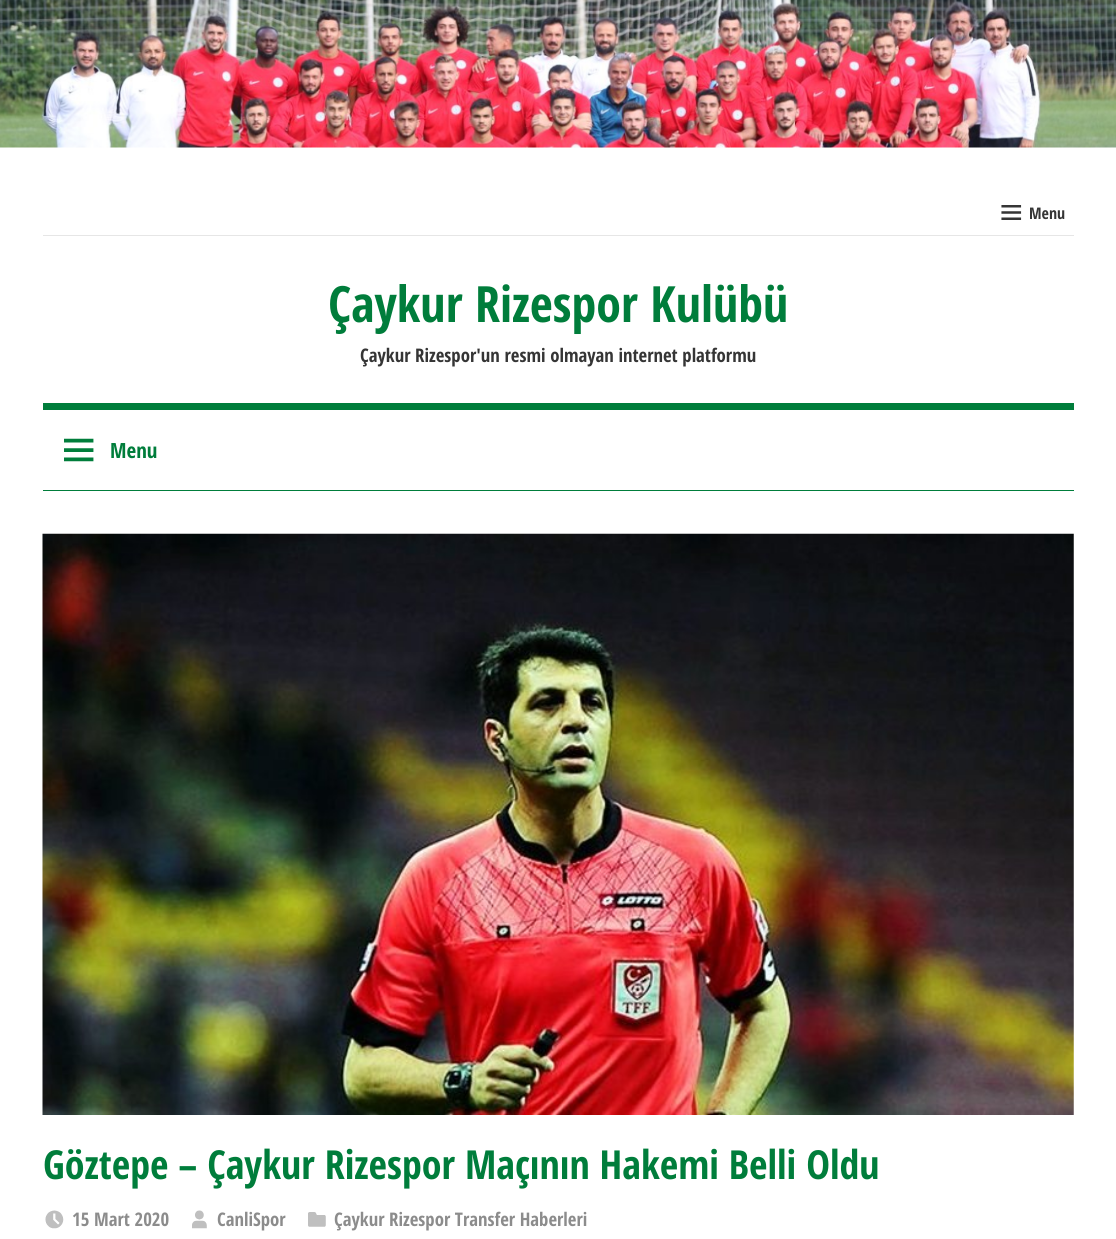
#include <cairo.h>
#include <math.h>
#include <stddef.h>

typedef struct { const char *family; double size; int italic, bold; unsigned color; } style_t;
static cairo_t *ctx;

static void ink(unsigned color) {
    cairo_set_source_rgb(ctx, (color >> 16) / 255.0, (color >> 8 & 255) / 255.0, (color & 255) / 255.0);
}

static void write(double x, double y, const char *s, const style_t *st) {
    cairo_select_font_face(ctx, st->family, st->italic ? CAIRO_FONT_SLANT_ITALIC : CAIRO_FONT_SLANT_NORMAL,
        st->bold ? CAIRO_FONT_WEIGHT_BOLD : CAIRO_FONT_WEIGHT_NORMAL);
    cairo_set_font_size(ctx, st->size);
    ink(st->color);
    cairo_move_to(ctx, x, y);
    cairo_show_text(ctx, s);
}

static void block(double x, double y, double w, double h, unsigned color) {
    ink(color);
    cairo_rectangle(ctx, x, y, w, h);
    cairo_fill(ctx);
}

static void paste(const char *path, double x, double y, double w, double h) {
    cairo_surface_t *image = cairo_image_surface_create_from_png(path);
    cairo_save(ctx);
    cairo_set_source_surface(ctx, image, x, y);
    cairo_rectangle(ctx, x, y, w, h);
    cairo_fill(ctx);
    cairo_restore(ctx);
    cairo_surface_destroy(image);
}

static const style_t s1 = {"Open Sans Condensed", 16, 0, 1, 0x353535};
static const style_t s2 = {"Open Sans Condensed", 50, 0, 1, 0x007d3b};
static const style_t s3 = {"Open Sans Condensed", 18.75, 0, 1, 0x353535};
static const style_t s4 = {"Open Sans Condensed", 21, 0, 1, 0x007d3b};
static const style_t s5 = {"Open Sans Condensed", 40, 0, 1, 0x007d3b};
static const style_t s6 = {"Open Sans Condensed", 18.75, 0, 1, 0x8c8c8c};

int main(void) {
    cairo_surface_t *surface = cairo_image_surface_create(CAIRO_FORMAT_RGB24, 1116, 1239);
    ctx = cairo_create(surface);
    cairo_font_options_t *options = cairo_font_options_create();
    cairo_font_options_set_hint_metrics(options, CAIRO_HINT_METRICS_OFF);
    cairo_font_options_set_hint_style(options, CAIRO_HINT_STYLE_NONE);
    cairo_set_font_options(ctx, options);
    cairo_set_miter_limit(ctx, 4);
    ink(0xffffff);
    cairo_paint(ctx);
    paste("pic1.png", 0, 0, 1116, 148);
    block(43, 235, 1031, 1, 0xe6e6e6);
    paste("pic2.png", 1001, 205, 21, 15);
    write(1029, 219, "Menu", &s1);
    write(328, 322, "Çaykur Rizespor Kulübü", &s2);
    write(360, 362, "Çaykur Rizespor'un resmi olmayan internet platformu", &s3);
    block(43, 403, 1031, 7, 0x007d3b);
    block(43, 490, 1031, 1, 0x007d3b);
    paste("pic3.png", 64, 438, 30, 24);
    write(110, 458, "Menu", &s4);
    paste("pic4.png", 42, 533, 1032, 582);
    write(43, 1179, "Göztepe – Çaykur Rizespor Maçının Hakemi Belli Oldu", &s5);
    paste("pic5.png", 45, 1210, 19, 19);
    write(72, 1226, "15 Mart 2020", &s6);
    paste("pic6.png", 192, 1210, 15, 19);
    write(217, 1226, "CanliSpor", &s6);
    paste("pic7.png", 308, 1212, 18, 15);
    write(334, 1226, "Çaykur Rizespor Transfer Haberleri", &s6);
    cairo_surface_write_to_png(surface, "screenshot.png");
    cairo_font_options_destroy(options);
    cairo_destroy(ctx);
    cairo_surface_destroy(surface);
    return 0;
}
